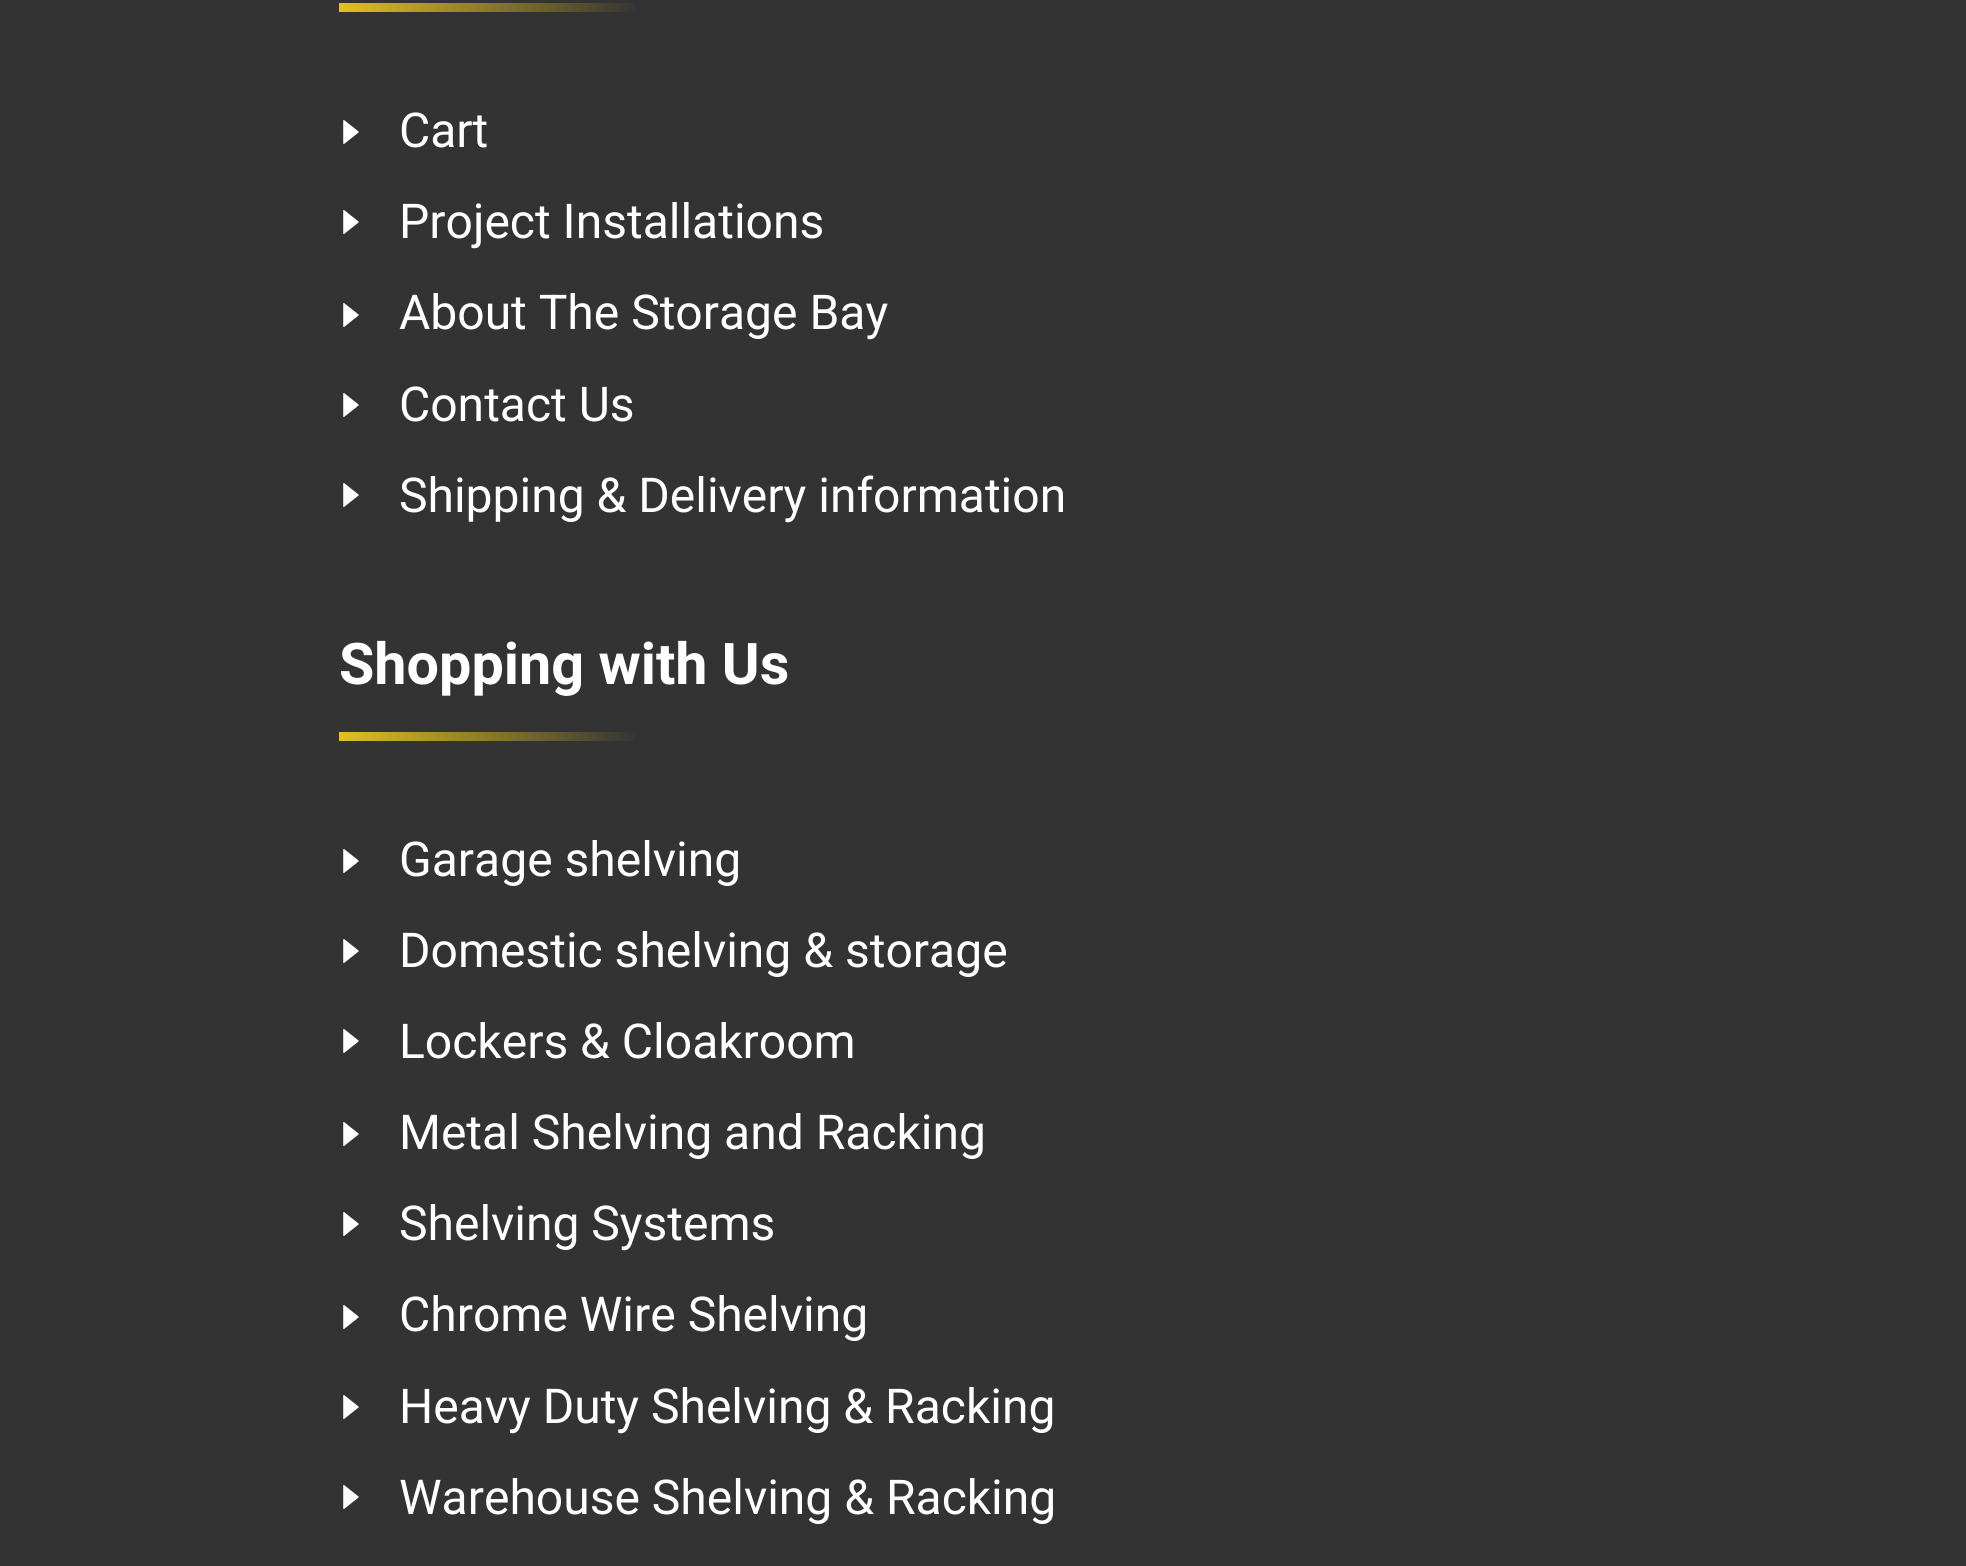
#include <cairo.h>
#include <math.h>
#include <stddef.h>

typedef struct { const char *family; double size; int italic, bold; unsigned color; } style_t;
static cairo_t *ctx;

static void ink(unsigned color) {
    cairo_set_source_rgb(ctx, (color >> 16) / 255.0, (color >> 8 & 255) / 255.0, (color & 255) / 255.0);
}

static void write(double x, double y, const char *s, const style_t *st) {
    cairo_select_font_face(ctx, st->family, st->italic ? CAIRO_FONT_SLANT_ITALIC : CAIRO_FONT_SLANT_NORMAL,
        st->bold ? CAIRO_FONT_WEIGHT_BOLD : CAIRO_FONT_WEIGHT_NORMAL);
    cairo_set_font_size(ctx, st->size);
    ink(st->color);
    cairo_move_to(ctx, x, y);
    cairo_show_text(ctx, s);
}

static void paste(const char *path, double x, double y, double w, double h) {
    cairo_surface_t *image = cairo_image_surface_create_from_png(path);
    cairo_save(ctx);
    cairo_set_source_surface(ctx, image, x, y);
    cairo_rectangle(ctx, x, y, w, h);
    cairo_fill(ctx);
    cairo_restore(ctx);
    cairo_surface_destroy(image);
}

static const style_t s1 = {"Roboto", 48, 0, 0, 0xffffff};
static const style_t s2 = {"Roboto", 57.5, 0, 1, 0xffffff};

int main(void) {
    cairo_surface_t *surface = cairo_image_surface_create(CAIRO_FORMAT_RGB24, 1966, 1566);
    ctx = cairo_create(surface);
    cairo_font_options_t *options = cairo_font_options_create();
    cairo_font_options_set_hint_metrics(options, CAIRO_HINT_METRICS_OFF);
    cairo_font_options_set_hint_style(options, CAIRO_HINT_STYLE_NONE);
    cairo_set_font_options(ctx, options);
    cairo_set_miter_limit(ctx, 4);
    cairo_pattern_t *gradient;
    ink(0x333333);
    cairo_paint(ctx);
    gradient = cairo_pattern_create_linear(339, 7.5, 639, 7.5);
    cairo_pattern_add_color_stop_rgba(gradient, 0, 0.886, 0.753, 0.129, 1);
    cairo_pattern_add_color_stop_rgba(gradient, 1, 0.2, 0.2, 0.2, 1);
    cairo_set_source(ctx, gradient);
    cairo_pattern_destroy(gradient);
    cairo_rectangle(ctx, 339, 3, 296, 9);
    cairo_fill(ctx);
    paste("pic1.png", 343, 120, 16, 24);
    write(399, 147, "Cart", &s1);
    paste("pic1.png", 343, 210, 16, 24);
    write(399, 238, "Project Installations", &s1);
    paste("pic1.png", 343, 303, 16, 24);
    write(399, 329, "About The Storage Bay", &s1);
    paste("pic1.png", 343, 393, 16, 24);
    write(399, 421, "Contact Us", &s1);
    paste("pic1.png", 343, 483, 16, 24);
    write(399, 512, "Shipping & Delivery information", &s1);
    write(339, 684, "Shopping with Us", &s2);
    gradient = cairo_pattern_create_linear(339, 737, 639, 737);
    cairo_pattern_add_color_stop_rgba(gradient, 0, 0.886, 0.753, 0.129, 1);
    cairo_pattern_add_color_stop_rgba(gradient, 1, 0.2, 0.2, 0.2, 1);
    cairo_set_source(ctx, gradient);
    cairo_pattern_destroy(gradient);
    cairo_rectangle(ctx, 339, 732, 296, 9);
    cairo_fill(ctx);
    paste("pic1.png", 343, 849, 16, 24);
    write(399, 876, "Garage shelving", &s1);
    paste("pic1.png", 343, 939, 16, 24);
    write(399, 967, "Domestic shelving & storage", &s1);
    paste("pic1.png", 343, 1029, 16, 24);
    write(399, 1058, "Lockers & Cloakroom", &s1);
    paste("pic1.png", 343, 1122, 16, 24);
    write(399, 1149, "Metal Shelving and Racking", &s1);
    paste("pic1.png", 343, 1212, 16, 24);
    write(399, 1240, "Shelving Systems", &s1);
    paste("pic1.png", 343, 1305, 16, 24);
    write(399, 1331, "Chrome Wire Shelving", &s1);
    paste("pic1.png", 343, 1395, 16, 24);
    write(399, 1423, "Heavy Duty Shelving & Racking", &s1);
    paste("pic1.png", 343, 1485, 16, 24);
    write(399, 1514, "Warehouse Shelving & Racking", &s1);
    cairo_surface_write_to_png(surface, "screenshot.png");
    cairo_font_options_destroy(options);
    cairo_destroy(ctx);
    cairo_surface_destroy(surface);
    return 0;
}
